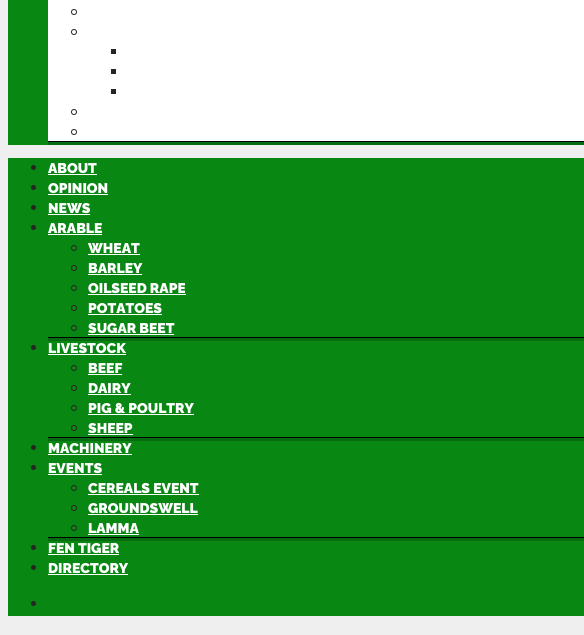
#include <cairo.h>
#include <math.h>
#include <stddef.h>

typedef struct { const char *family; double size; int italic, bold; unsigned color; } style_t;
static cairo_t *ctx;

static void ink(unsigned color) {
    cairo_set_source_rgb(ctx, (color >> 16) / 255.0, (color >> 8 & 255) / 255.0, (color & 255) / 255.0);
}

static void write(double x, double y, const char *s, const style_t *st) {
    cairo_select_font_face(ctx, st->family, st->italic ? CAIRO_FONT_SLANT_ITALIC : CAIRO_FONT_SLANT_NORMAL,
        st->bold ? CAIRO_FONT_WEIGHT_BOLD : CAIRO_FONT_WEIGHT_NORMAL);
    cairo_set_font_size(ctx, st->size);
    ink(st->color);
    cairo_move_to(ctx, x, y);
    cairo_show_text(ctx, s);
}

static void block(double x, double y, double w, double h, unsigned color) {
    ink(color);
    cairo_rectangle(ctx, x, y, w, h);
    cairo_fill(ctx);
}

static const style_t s1 = {"Raleway Black", 14, 0, 0, 0xffffff};

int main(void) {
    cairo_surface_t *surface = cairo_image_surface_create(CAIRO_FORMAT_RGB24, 584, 635);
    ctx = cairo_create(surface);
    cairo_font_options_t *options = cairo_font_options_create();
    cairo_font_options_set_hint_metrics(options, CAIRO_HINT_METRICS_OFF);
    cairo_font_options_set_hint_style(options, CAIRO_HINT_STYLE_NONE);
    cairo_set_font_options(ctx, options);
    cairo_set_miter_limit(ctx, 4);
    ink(0xefefef);
    cairo_paint(ctx);
    block(8, 0, 40, 145, 0x098713);
    block(48, 142, 536, 3, 0x076c0f);
    block(48, 0, 536, 141, 0xffffff);
    block(48, 141, 536, 1, 0x000000);
    cairo_arc(ctx, 74, 12, 2.5, 0, 2 * M_PI);
    ink(0x252525);
    cairo_set_line_width(ctx, 1);
    cairo_stroke(ctx);
    cairo_arc(ctx, 74, 32, 2.5, 0, 2 * M_PI);
    cairo_stroke(ctx);
    block(111, 49, 5, 5, 0x252525);
    block(111, 69, 5, 5, 0x252525);
    block(111, 89, 5, 5, 0x252525);
    cairo_arc(ctx, 74, 112, 2.5, 0, 2 * M_PI);
    cairo_stroke(ctx);
    cairo_arc(ctx, 74, 132, 2.5, 0, 2 * M_PI);
    cairo_stroke(ctx);
    block(8, 158, 576, 458, 0x098713);
    ink(0x252525);
    cairo_arc(ctx, 33.5, 167.5, 2.5, 0, 2 * M_PI);
    cairo_fill(ctx);
    write(48, 173, "ABOUT", &s1);
    block(48, 174, 49, 1, 0xffffff);
    ink(0x252525);
    cairo_new_path(ctx);
    cairo_arc(ctx, 33.5, 187.5, 2.5, 0, 2 * M_PI);
    cairo_fill(ctx);
    write(48, 193, "OPINION", &s1);
    block(48, 194, 60, 1, 0xffffff);
    ink(0x252525);
    cairo_new_path(ctx);
    cairo_arc(ctx, 33.5, 207.5, 2.5, 0, 2 * M_PI);
    cairo_fill(ctx);
    write(48, 213, "NEWS", &s1);
    block(48, 214, 42, 1, 0xffffff);
    ink(0x252525);
    cairo_new_path(ctx);
    cairo_arc(ctx, 33.5, 227.5, 2.5, 0, 2 * M_PI);
    cairo_fill(ctx);
    write(48, 233, "ARABLE", &s1);
    block(48, 234, 54, 1, 0xffffff);
    block(48, 338, 536, 3, 0x076c0f);
    block(48, 337, 536, 1, 0x000000);
    cairo_new_path(ctx);
    cairo_arc(ctx, 74, 248, 2.5, 0, 2 * M_PI);
    ink(0x252525);
    cairo_stroke(ctx);
    write(88, 253, "WHEAT", &s1);
    block(88, 254, 52, 1, 0xffffff);
    cairo_new_path(ctx);
    cairo_arc(ctx, 74, 268, 2.5, 0, 2 * M_PI);
    ink(0x252525);
    cairo_stroke(ctx);
    write(88, 273, "BARLEY", &s1);
    block(88, 274, 54, 1, 0xffffff);
    cairo_new_path(ctx);
    cairo_arc(ctx, 74, 288, 2.5, 0, 2 * M_PI);
    ink(0x252525);
    cairo_stroke(ctx);
    write(88, 293, "OILSEED RAPE", &s1);
    block(88, 294, 98, 1, 0xffffff);
    cairo_new_path(ctx);
    cairo_arc(ctx, 74, 308, 2.5, 0, 2 * M_PI);
    ink(0x252525);
    cairo_stroke(ctx);
    write(88, 313, "POTATOES", &s1);
    block(88, 314, 74, 1, 0xffffff);
    cairo_new_path(ctx);
    cairo_arc(ctx, 74, 328, 2.5, 0, 2 * M_PI);
    ink(0x252525);
    cairo_stroke(ctx);
    write(88, 333, "SUGAR BEET", &s1);
    block(88, 334, 86, 1, 0xffffff);
    ink(0x252525);
    cairo_new_path(ctx);
    cairo_arc(ctx, 33.5, 347.5, 2.5, 0, 2 * M_PI);
    cairo_fill(ctx);
    write(48, 353, "LIVESTOCK", &s1);
    block(48, 354, 78, 1, 0xffffff);
    block(48, 438, 536, 3, 0x076c0f);
    block(48, 437, 536, 1, 0x000000);
    cairo_new_path(ctx);
    cairo_arc(ctx, 74, 368, 2.5, 0, 2 * M_PI);
    ink(0x252525);
    cairo_stroke(ctx);
    write(88, 373, "BEEF", &s1);
    block(88, 374, 34, 1, 0xffffff);
    cairo_new_path(ctx);
    cairo_arc(ctx, 74, 388, 2.5, 0, 2 * M_PI);
    ink(0x252525);
    cairo_stroke(ctx);
    write(88, 393, "DAIRY", &s1);
    block(88, 394, 43, 1, 0xffffff);
    cairo_new_path(ctx);
    cairo_arc(ctx, 74, 408, 2.5, 0, 2 * M_PI);
    ink(0x252525);
    cairo_stroke(ctx);
    write(88, 413, "PIG & POULTRY", &s1);
    block(88, 414, 106, 1, 0xffffff);
    cairo_new_path(ctx);
    cairo_arc(ctx, 74, 428, 2.5, 0, 2 * M_PI);
    ink(0x252525);
    cairo_stroke(ctx);
    write(88, 433, "SHEEP", &s1);
    block(88, 434, 45, 1, 0xffffff);
    ink(0x252525);
    cairo_new_path(ctx);
    cairo_arc(ctx, 33.5, 447.5, 2.5, 0, 2 * M_PI);
    cairo_fill(ctx);
    write(48, 453, "MACHINERY", &s1);
    block(48, 454, 84, 1, 0xffffff);
    ink(0x252525);
    cairo_new_path(ctx);
    cairo_arc(ctx, 33.5, 467.5, 2.5, 0, 2 * M_PI);
    cairo_fill(ctx);
    write(48, 473, "EVENTS", &s1);
    block(48, 474, 54, 1, 0xffffff);
    block(48, 538, 536, 3, 0x076c0f);
    block(48, 537, 536, 1, 0x000000);
    cairo_new_path(ctx);
    cairo_arc(ctx, 74, 488, 2.5, 0, 2 * M_PI);
    ink(0x252525);
    cairo_stroke(ctx);
    write(88, 493, "CEREALS EVENT", &s1);
    block(88, 494, 111, 1, 0xffffff);
    cairo_new_path(ctx);
    cairo_arc(ctx, 74, 508, 2.5, 0, 2 * M_PI);
    ink(0x252525);
    cairo_stroke(ctx);
    write(88, 513, "GROUNDSWELL", &s1);
    block(88, 514, 110, 1, 0xffffff);
    cairo_new_path(ctx);
    cairo_arc(ctx, 74, 528, 2.5, 0, 2 * M_PI);
    ink(0x252525);
    cairo_stroke(ctx);
    write(88, 533, "LAMMA", &s1);
    block(88, 534, 51, 1, 0xffffff);
    ink(0x252525);
    cairo_new_path(ctx);
    cairo_arc(ctx, 33.5, 547.5, 2.5, 0, 2 * M_PI);
    cairo_fill(ctx);
    write(48, 553, "FEN TIGER", &s1);
    block(48, 554, 71, 1, 0xffffff);
    ink(0x252525);
    cairo_new_path(ctx);
    cairo_arc(ctx, 33.5, 567.5, 2.5, 0, 2 * M_PI);
    cairo_fill(ctx);
    write(48, 573, "DIRECTORY", &s1);
    block(48, 574, 80, 1, 0xffffff);
    ink(0x252525);
    cairo_new_path(ctx);
    cairo_arc(ctx, 33.5, 603.5, 2.5, 0, 2 * M_PI);
    cairo_fill(ctx);
    cairo_surface_write_to_png(surface, "screenshot.png");
    cairo_font_options_destroy(options);
    cairo_destroy(ctx);
    cairo_surface_destroy(surface);
    return 0;
}
